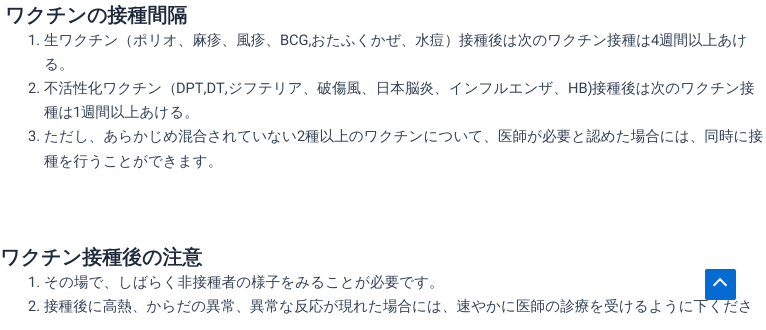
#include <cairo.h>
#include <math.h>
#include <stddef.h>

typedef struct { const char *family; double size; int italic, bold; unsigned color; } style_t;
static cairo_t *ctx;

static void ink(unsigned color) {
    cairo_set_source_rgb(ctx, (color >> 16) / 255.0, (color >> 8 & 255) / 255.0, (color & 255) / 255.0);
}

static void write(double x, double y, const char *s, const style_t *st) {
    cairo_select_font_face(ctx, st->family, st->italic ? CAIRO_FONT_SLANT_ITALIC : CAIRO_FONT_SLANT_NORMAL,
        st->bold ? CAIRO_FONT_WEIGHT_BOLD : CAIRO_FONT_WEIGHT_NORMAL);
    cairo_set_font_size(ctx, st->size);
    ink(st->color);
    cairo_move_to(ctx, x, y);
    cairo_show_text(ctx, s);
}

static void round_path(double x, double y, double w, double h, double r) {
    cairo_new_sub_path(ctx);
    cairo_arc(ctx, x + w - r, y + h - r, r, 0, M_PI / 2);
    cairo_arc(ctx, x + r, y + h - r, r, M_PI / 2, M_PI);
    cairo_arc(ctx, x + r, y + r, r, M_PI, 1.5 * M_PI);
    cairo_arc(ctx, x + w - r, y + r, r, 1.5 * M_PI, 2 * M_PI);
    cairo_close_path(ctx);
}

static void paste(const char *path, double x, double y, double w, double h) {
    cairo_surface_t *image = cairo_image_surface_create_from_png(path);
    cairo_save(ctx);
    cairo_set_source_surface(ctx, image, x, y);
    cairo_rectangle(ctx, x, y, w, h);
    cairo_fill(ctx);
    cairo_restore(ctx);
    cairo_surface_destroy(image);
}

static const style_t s1 = {"WenQuanYi Zen Hei", 20, 0, 1, 0x1e293b};
static const style_t s2 = {"Roboto", 14.6, 0, 0, 0x334155};
static const style_t s3 = {"WenQuanYi Zen Hei Medium", 14.6, 0, 0, 0x334155};

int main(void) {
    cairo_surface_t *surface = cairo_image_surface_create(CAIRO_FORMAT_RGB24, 766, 330);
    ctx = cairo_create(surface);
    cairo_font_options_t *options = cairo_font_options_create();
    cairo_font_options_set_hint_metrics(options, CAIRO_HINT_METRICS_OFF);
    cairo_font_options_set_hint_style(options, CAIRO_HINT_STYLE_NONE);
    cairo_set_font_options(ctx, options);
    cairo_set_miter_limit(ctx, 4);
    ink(0xffffff);
    cairo_paint(ctx);
    write(5, 22, "ワクチンの接種間隔", &s1);
    write(28, 45, "1.", &s2);
    write(44, 45, "生ワクチン（ポリオ、麻疹、風疹、", &s3);
    write(280, 45, "BCG,", &s2);
    write(311, 45, "おたふくかぜ、水痘）接種後は次のワクチン接種は", &s3);
    write(651, 45, "4", &s2);
    write(659, 45, "週間以上あけ", &s3);
    write(44, 69, "る。", &s3);
    write(28, 93, "2.", &s2);
    write(44, 93, "不活性化ワクチン（", &s3);
    write(176, 93, "DPT,DT,", &s2);
    write(228, 93, "ジフテリア、破傷風、日本脳炎、インフルエンザ、", &s3);
    write(568, 93, "HB)", &s2);
    write(592, 93, "接種後は次のワクチン接", &s3);
    write(44, 117, "種は", &s3);
    write(73, 117, "1", &s2);
    write(81, 117, "週間以上あける。", &s3);
    write(28, 141, "3.", &s2);
    write(44, 141, "ただし、あらかじめ混合されていない", &s3);
    write(297, 141, "2", &s2);
    write(305, 141, "種以上のワクチンについて、医師が必要と認めた場合には、同時に接", &s3);
    write(44, 166, "種を行うことができます。", &s3);
    write(0, 264, "ワクチン接種後の注意", &s1);
    write(28, 287, "1.", &s2);
    write(44, 287, "その場で、しばらく非接種者の様子をみることが必要です。", &s3);
    write(28, 311, "2.", &s2);
    write(44, 311, "接種後に高熱、からだの異常、異常な反応が現れた場合には、速やかに医師の診療を受けるように下くださ", &s3);
    ink(0x046bd2);
    round_path(705, 269, 31, 31, 2);
    cairo_fill(ctx);
    paste("pic1.png", 713, 278, 15, 9);
    cairo_surface_write_to_png(surface, "screenshot.png");
    cairo_font_options_destroy(options);
    cairo_destroy(ctx);
    cairo_surface_destroy(surface);
    return 0;
}
